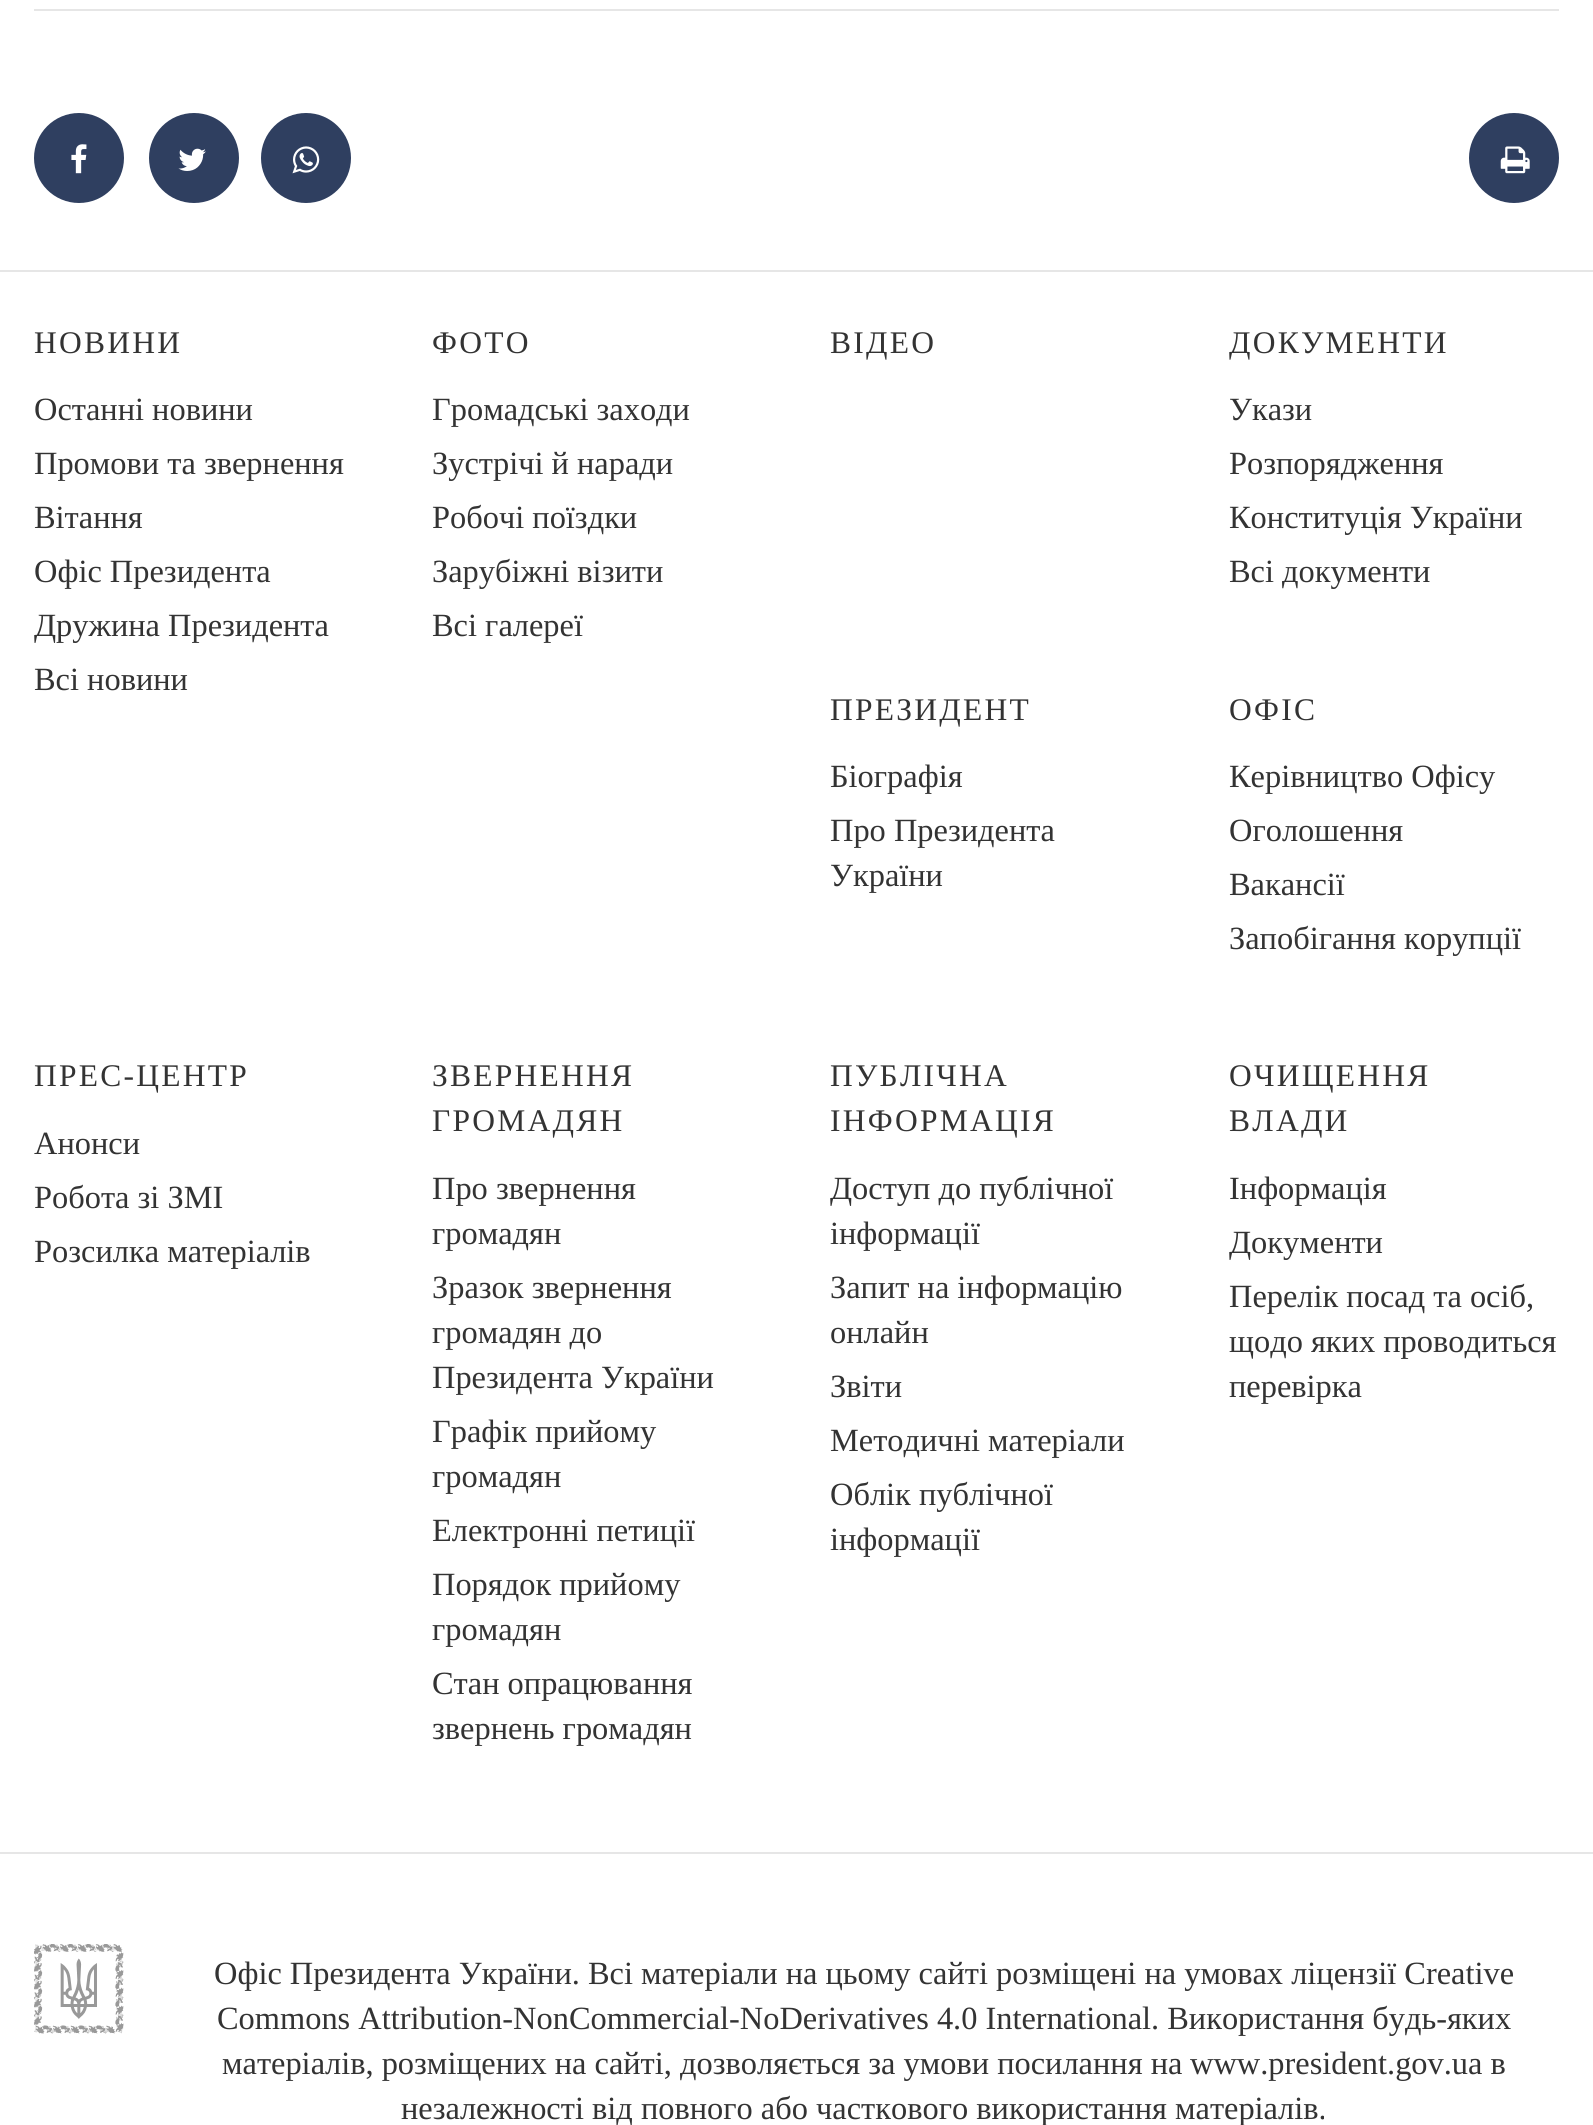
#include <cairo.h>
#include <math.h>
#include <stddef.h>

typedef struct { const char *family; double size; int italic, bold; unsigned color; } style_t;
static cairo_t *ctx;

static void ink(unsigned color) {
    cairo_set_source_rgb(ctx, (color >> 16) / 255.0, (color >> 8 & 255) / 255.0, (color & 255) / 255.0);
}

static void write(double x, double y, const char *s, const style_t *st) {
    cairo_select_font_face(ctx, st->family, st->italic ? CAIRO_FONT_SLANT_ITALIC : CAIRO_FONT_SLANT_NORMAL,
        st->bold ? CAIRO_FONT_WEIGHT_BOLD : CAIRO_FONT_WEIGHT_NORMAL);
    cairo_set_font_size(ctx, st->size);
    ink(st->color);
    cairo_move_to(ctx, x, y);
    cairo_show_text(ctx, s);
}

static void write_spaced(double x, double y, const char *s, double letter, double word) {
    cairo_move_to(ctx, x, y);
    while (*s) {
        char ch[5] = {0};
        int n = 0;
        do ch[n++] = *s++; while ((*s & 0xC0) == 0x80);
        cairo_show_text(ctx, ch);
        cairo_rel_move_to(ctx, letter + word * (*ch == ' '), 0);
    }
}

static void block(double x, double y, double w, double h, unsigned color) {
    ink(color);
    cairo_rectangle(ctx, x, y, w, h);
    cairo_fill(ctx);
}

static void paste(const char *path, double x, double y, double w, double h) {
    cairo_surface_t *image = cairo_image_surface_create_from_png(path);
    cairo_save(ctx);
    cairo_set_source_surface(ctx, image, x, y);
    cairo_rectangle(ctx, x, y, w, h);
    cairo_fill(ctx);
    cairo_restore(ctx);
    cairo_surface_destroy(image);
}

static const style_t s1 = {"Liberation Serif", 32.4, 0, 0, 0x333333};

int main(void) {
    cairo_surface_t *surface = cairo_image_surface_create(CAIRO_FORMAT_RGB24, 1593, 2125);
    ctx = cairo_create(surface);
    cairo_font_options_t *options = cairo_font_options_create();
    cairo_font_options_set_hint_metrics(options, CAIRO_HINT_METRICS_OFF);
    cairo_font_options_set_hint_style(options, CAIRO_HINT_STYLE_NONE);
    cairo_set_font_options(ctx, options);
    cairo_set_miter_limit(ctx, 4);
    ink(0xffffff);
    cairo_paint(ctx);
    block(34, 9, 1525, 2, 0xe6e6e6);
    ink(0x2f3f60);
    cairo_arc(ctx, 79, 158, 45, 0, 2 * M_PI);
    cairo_fill(ctx);
    paste("pic1.png", 71, 144, 16, 30);
    cairo_arc(ctx, 194, 158, 45, 0, 2 * M_PI);
    cairo_fill(ctx);
    paste("pic2.png", 178, 148, 28, 23);
    cairo_arc(ctx, 306, 158, 45, 0, 2 * M_PI);
    cairo_fill(ctx);
    paste("pic3.png", 292, 146, 28, 28);
    cairo_arc(ctx, 1514, 158, 45, 0, 2 * M_PI);
    cairo_fill(ctx);
    paste("pic4.png", 1500, 146, 30, 28);
    block(0, 270, 1593, 2, 0xe6e6e6);
    cairo_select_font_face(ctx, "Liberation Serif", CAIRO_FONT_SLANT_NORMAL, CAIRO_FONT_WEIGHT_NORMAL);
    cairo_set_font_size(ctx, 31.5);
    ink(0x333333);
    write_spaced(34, 353, "НОВИНИ", 2.25, 0);
    write(34, 420, "Останні новини", &s1);
    write(34, 474, "Промови та звернення", &s1);
    write(34, 528, "Вiтання", &s1);
    write(34, 582, "Офіс Президента", &s1);
    write(34, 636, "Дружина Президента", &s1);
    write(34, 690, "Всі новини", &s1);
    cairo_set_font_size(ctx, 31.5);
    write_spaced(432, 353, "ФОТО", 2.25, 0);
    write(432, 420, "Громадські заходи", &s1);
    write(432, 474, "Зустрічі й наради", &s1);
    write(432, 528, "Робочі поїздки", &s1);
    write(432, 582, "Зарубіжні візити", &s1);
    write(432, 636, "Всі галереї", &s1);
    cairo_set_font_size(ctx, 31.5);
    write_spaced(830, 353, "ВІДЕО", 2.25, 0);
    write_spaced(1229, 353, "ДОКУМЕНТИ", 2.25, 0);
    write(1229, 420, "Укази", &s1);
    write(1229, 474, "Розпорядження", &s1);
    write(1229, 528, "Конституція України", &s1);
    write(1229, 582, "Всі документи", &s1);
    cairo_set_font_size(ctx, 31.5);
    write_spaced(830, 720, "ПРЕЗИДЕНТ", 2.25, 0);
    write(830, 787, "Біографія", &s1);
    write(830, 841, "Про Президента", &s1);
    write(830, 886, "України", &s1);
    cairo_set_font_size(ctx, 31.5);
    write_spaced(1229, 720, "ОФІС", 2.25, 0);
    write(1229, 787, "Керівництво Офісу", &s1);
    write(1229, 841, "Оголошення", &s1);
    write(1229, 895, "Вакансії", &s1);
    write(1229, 949, "Запобігання корупції", &s1);
    cairo_set_font_size(ctx, 31.5);
    write_spaced(34, 1086, "ПРЕС-ЦЕНТР", 2.25, 0);
    write(34, 1154, "Анонси", &s1);
    write(34, 1208, "Робота зі ЗМІ", &s1);
    write(34, 1262, "Розсилка матеріалів", &s1);
    cairo_set_font_size(ctx, 31.5);
    write_spaced(432, 1086, "ЗВЕРНЕННЯ", 2.25, 0);
    write_spaced(432, 1131, "ГРОМАДЯН", 2.25, 0);
    write(432, 1199, "Про звернення", &s1);
    write(432, 1244, "громадян", &s1);
    write(432, 1298, "Зразок звернення", &s1);
    write(432, 1343, "громадян до", &s1);
    write(432, 1388, "Президента України", &s1);
    write(432, 1442, "Графік прийому", &s1);
    write(432, 1487, "громадян", &s1);
    write(432, 1541, "Електронні петиції", &s1);
    write(432, 1595, "Порядок прийому", &s1);
    write(432, 1640, "громадян", &s1);
    write(432, 1694, "Стан опрацювання", &s1);
    write(432, 1739, "звернень громадян", &s1);
    cairo_set_font_size(ctx, 31.5);
    write_spaced(830, 1086, "ПУБЛІЧНА", 2.25, 0);
    write_spaced(830, 1131, "ІНФОРМАЦІЯ", 2.25, 0);
    write(830, 1199, "Доступ до публічної", &s1);
    write(830, 1244, "інформації", &s1);
    write(830, 1298, "Запит на інформацію", &s1);
    write(830, 1343, "онлайн", &s1);
    write(830, 1397, "Звіти", &s1);
    write(830, 1451, "Методичні матеріали", &s1);
    write(830, 1505, "Облік публічної", &s1);
    write(830, 1550, "інформації", &s1);
    cairo_set_font_size(ctx, 31.5);
    write_spaced(1229, 1086, "ОЧИЩЕННЯ", 2.25, 0);
    write_spaced(1229, 1131, "ВЛАДИ", 2.25, 0);
    write(1229, 1199, "Інформація", &s1);
    write(1229, 1253, "Документи", &s1);
    write(1229, 1307, "Перелік посад та осіб,", &s1);
    write(1229, 1352, "щодо яких проводиться", &s1);
    write(1229, 1397, "перевірка", &s1);
    block(0, 1852, 1593, 2, 0xe6e6e6);
    paste("pic5.png", 34, 1944, 90, 90);
    write(214, 1984, "Офіс Президента України. Всі матеріали на цьому сайті розміщені на умовах ліцензії Creative", &s1);
    write(217, 2029, "Commons Attribution-NonCommercial-NoDerivatives 4.0 International", &s1);
    write(1151, 2029, ". Використання будь-яких", &s1);
    write(222, 2074, "матеріалів, розміщених на сайті, дозволяється за умови посилання на", &s1);
    write(1190, 2074, "www.president.gov.ua в", &s1);
    write(401, 2119, "незалежності від повного або часткового використання матеріалів.", &s1);
    cairo_surface_write_to_png(surface, "screenshot.png");
    cairo_font_options_destroy(options);
    cairo_destroy(ctx);
    cairo_surface_destroy(surface);
    return 0;
}
